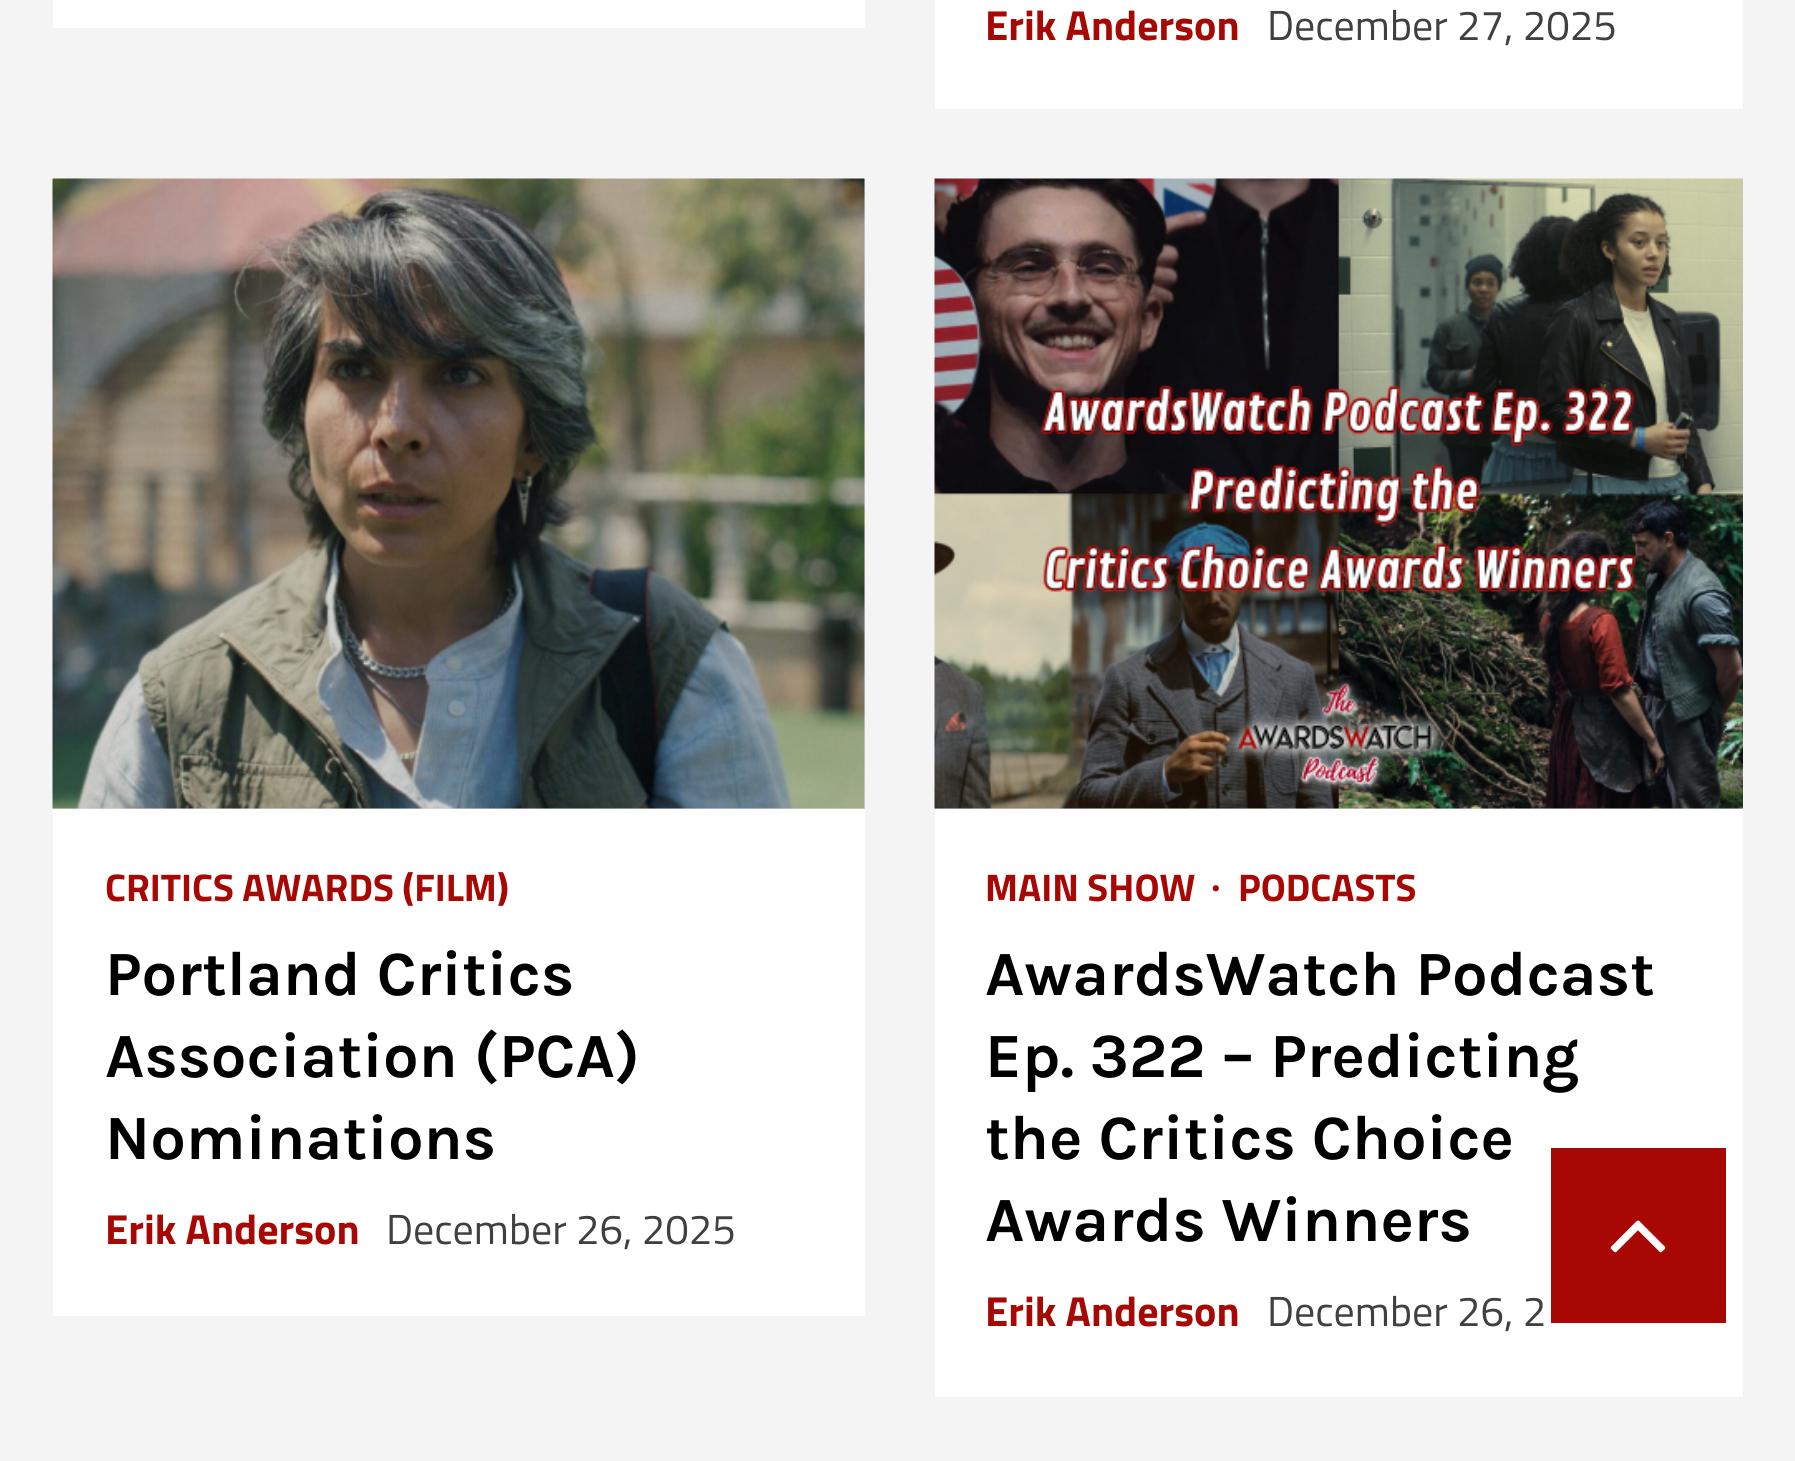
#include <cairo.h>
#include <math.h>
#include <stddef.h>

typedef struct { const char *family; double size; int italic, bold; unsigned color; } style_t;
static cairo_t *ctx;

static void ink(unsigned color) {
    cairo_set_source_rgb(ctx, (color >> 16) / 255.0, (color >> 8 & 255) / 255.0, (color & 255) / 255.0);
}

static void write(double x, double y, const char *s, const style_t *st) {
    cairo_select_font_face(ctx, st->family, st->italic ? CAIRO_FONT_SLANT_ITALIC : CAIRO_FONT_SLANT_NORMAL,
        st->bold ? CAIRO_FONT_WEIGHT_BOLD : CAIRO_FONT_WEIGHT_NORMAL);
    cairo_set_font_size(ctx, st->size);
    ink(st->color);
    cairo_move_to(ctx, x, y);
    cairo_show_text(ctx, s);
}

static void block(double x, double y, double w, double h, unsigned color) {
    ink(color);
    cairo_rectangle(ctx, x, y, w, h);
    cairo_fill(ctx);
}

static void paste(const char *path, double x, double y, double w, double h) {
    cairo_surface_t *image = cairo_image_surface_create_from_png(path);
    cairo_save(ctx);
    cairo_set_source_surface(ctx, image, x, y);
    cairo_rectangle(ctx, x, y, w, h);
    cairo_fill(ctx);
    cairo_restore(ctx);
    cairo_surface_destroy(image);
}

static const style_t s1 = {"Titillium Web", 42, 0, 1, 0xa80803};
static const style_t s2 = {"Titillium Web", 42, 0, 0, 0x404040};
static const style_t s3 = {"Titillium Web", 38.5, 0, 1, 0xa80803};
static const style_t s4 = {"Karla", 63, 0, 1, 0x000000};
static const style_t s5 = {"Liberation Serif", 38.5, 0, 1, 0xa80803};

int main(void) {
    cairo_surface_t *surface = cairo_image_surface_create(CAIRO_FORMAT_RGB24, 1795, 1461);
    ctx = cairo_create(surface);
    cairo_font_options_t *options = cairo_font_options_create();
    cairo_font_options_set_hint_metrics(options, CAIRO_HINT_METRICS_OFF);
    cairo_font_options_set_hint_style(options, CAIRO_HINT_STYLE_NONE);
    cairo_set_font_options(ctx, options);
    cairo_set_miter_limit(ctx, 4);
    ink(0xf4f4f4);
    cairo_paint(ctx);
    block(53, 0, 812, 28, 0xffffff);
    block(935, 0, 808, 109, 0xffffff);
    write(985, 40, "Erik Anderson", &s1);
    write(1267, 40, "December 27, 2025", &s2);
    block(53, 809, 812, 507, 0xffffff);
    block(53, 179, 812, 630, 0xe0e0e0);
    paste("pic1.png", 52, 178, 813, 631);
    write(105, 901, "CRITICS AWARDS (FILM)", &s3);
    write(105, 995, "Portland Critics", &s4);
    write(105, 1077, "Association (PCA)", &s4);
    write(105, 1159, "Nominations", &s4);
    write(105, 1244, "Erik Anderson", &s1);
    write(386, 1244, "December 26, 2025", &s2);
    block(935, 809, 808, 588, 0xffffff);
    block(935, 808, 808, 1, 0xe0e0e0);
    paste("pic2.png", 934, 178, 809, 631);
    write(985, 901, "MAIN SHOW", &s3);
    write(1211, 901, "∙", &s5);
    write(1238, 901, "PODCASTS", &s3);
    write(985, 995, "AwardsWatch Podcast", &s4);
    write(985, 1077, "Ep. 322 – Predicting", &s4);
    write(985, 1159, "the Critics Choice", &s4);
    write(985, 1241, "Awards Winners", &s4);
    write(985, 1326, "Erik Anderson", &s1);
    write(1267, 1326, "December 26, 2", &s2);
    block(1551, 1148, 175, 175, 0xa80803);
    paste("pic3.png", 1610, 1220, 56, 33);
    cairo_surface_write_to_png(surface, "screenshot.png");
    cairo_font_options_destroy(options);
    cairo_destroy(ctx);
    cairo_surface_destroy(surface);
    return 0;
}
